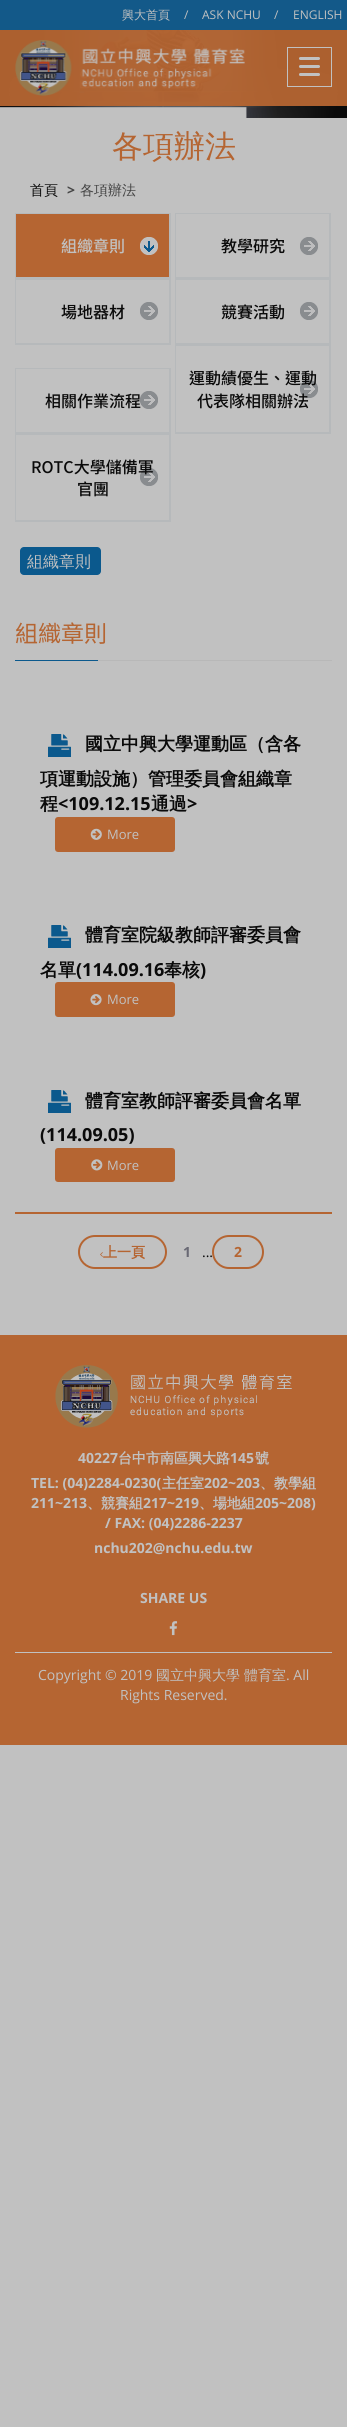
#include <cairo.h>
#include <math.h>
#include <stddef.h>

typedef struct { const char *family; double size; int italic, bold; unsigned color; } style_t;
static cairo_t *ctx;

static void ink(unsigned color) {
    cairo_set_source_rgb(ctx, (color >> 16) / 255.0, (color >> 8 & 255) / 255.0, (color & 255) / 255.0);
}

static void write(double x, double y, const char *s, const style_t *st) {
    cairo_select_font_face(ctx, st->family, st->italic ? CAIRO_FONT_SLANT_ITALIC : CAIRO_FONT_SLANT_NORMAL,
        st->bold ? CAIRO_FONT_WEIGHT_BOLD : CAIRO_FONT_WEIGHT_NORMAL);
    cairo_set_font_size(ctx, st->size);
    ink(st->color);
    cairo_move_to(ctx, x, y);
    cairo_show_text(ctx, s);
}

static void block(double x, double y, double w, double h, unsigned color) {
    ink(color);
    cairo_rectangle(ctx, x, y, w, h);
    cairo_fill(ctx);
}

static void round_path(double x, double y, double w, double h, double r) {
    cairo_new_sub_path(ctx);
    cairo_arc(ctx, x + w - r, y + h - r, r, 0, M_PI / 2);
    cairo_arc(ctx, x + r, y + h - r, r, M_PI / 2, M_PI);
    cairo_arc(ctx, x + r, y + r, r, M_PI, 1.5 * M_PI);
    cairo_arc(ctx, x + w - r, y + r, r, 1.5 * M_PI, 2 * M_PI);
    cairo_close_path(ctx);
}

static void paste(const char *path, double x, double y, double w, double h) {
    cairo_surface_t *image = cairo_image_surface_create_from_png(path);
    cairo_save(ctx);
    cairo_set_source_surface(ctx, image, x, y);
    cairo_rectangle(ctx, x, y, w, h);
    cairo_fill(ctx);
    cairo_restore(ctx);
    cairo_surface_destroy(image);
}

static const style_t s1 = {"WenQuanYi Zen Hei Medium", 12, 0, 0, 0xc1c1c1};
static const style_t s2 = {"Open Sans", 12, 0, 0, 0xc1c1c1};
static const style_t s3 = {"WenQuanYi Zen Hei Medium", 31, 0, 0, 0xb56532};
static const style_t s4 = {"WenQuanYi Zen Hei Medium", 14, 0, 0, 0x0a0a0a};
static const style_t s5 = {"Open Sans", 14, 0, 1, 0x454545};
static const style_t s6 = {"WenQuanYi Zen Hei Medium", 14, 0, 0, 0x454545};
static const style_t s7 = {"Noto Sans TC Medium", 16, 0, 0, 0xc1c1c1};
static const style_t s8 = {"Noto Sans TC Medium", 16, 0, 0, 0x0a0a0a};
static const style_t s9 = {"WenQuanYi Zen Hei Medium", 16, 0, 0, 0xc1c1c1};
static const style_t s10 = {"Noto Sans TC", 23, 0, 0, 0xb56532};
static const style_t s11 = {"WenQuanYi Zen Hei", 18, 0, 1, 0x0a0a0a};
static const style_t s12 = {"Open Sans", 18, 0, 1, 0x0a0a0a};
static const style_t s13 = {"Open Sans", 13, 0, 0, 0xc1c1c1};
static const style_t s14 = {"WenQuanYi Zen Hei", 14, 0, 1, 0xb56532};
static const style_t s15 = {"Open Sans", 14, 0, 1, 0x696974};
static const style_t s16 = {"Open Sans", 14, 0, 0, 0x0a0a0a};
static const style_t s17 = {"Open Sans", 14, 0, 1, 0xb56532};
static const style_t s18 = {"Open Sans", 14, 0, 1, 0xc1c1c1};
static const style_t s19 = {"WenQuanYi Zen Hei", 14, 0, 1, 0xc1c1c1};
static const style_t s20 = {"Open Sans", 14, 0, 0, 0xc1c1c1};
static const style_t s21 = {"WenQuanYi Zen Hei Medium", 14, 0, 0, 0xc1c1c1};

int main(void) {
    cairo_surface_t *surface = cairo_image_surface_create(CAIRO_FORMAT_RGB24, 347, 2427);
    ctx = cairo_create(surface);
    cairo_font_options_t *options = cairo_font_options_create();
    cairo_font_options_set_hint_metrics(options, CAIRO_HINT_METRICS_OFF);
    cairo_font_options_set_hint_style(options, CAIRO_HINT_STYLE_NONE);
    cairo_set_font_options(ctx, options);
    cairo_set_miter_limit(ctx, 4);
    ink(0xc1c1c1);
    cairo_paint(ctx);
    paste("pic2.png", 0, 20, 347, 98);
    cairo_set_source_rgba(ctx, 0.71, 0.396, 0.196, 0.95);
    cairo_rectangle(ctx, 0, 0, 347, 106);
    cairo_fill(ctx);
    cairo_set_source_rgba(ctx, 0.043, 0.349, 0.553, 0.95);
    cairo_rectangle(ctx, 0, 0, 347, 30);
    cairo_fill(ctx);
    write(122, 19, "興大首頁", &s1);
    write(184, 19, "/", &s2);
    write(202, 19, "ASK NCHU", &s2);
    write(274, 19, "/", &s2);
    write(293, 19, "ENGLISH", &s2);
    paste("pic1.png", 15, 40, 230, 56);
    cairo_rectangle(ctx, 287.5, 47.5, 44, 39);
    cairo_set_line_width(ctx, 1);
    cairo_stroke(ctx);
    round_path(299.5, 57.5, 20, 2, 1);
    cairo_fill_preserve(ctx);
    cairo_stroke(ctx);
    round_path(299.5, 65.5, 20, 2, 1);
    cairo_fill_preserve(ctx);
    cairo_stroke(ctx);
    round_path(299.5, 73.5, 20, 2, 1);
    cairo_fill_preserve(ctx);
    cairo_stroke(ctx);
    write(112, 157, "各項辦法", &s3);
    write(30, 195, "首頁", &s4);
    write(67, 195, ">", &s5);
    write(80, 195, "各項辦法", &s6);
    block(16, 214, 153, 63, 0xb56532);
    paste("pic3.png", 140, 237, 18, 18);
    block(15, 213, 156, 1, 0xb6b9bb);
    block(169, 213, 2, 66, 0xb6b9bb);
    block(15, 277, 156, 3, 0xb6b9bb);
    block(15, 213, 1, 66, 0xb6b9bb);
    write(61, 252, "組織章則", &s7);
    paste("pic4.png", 300, 237, 18, 18);
    block(175, 213, 156, 1, 0xb6b9bb);
    block(329, 213, 2, 66, 0xb6b9bb);
    block(175, 277, 156, 3, 0xb6b9bb);
    block(175, 213, 1, 66, 0xb6b9bb);
    write(221, 252, "教學研究", &s8);
    paste("pic4.png", 140, 302, 18, 18);
    block(169, 279, 2, 66, 0xb6b9bb);
    block(15, 343, 156, 2, 0xb6b9bb);
    block(15, 279, 1, 66, 0xb6b9bb);
    write(61, 318, "場地器材", &s8);
    paste("pic4.png", 300, 302, 18, 18);
    block(329, 279, 2, 66, 0xb6b9bb);
    block(175, 343, 156, 3, 0xb6b9bb);
    block(175, 279, 1, 66, 0xb6b9bb);
    write(221, 318, "競賽活動", &s8);
    paste("pic4.png", 140, 391, 18, 18);
    block(15, 368, 156, 1, 0xb6b9bb);
    block(169, 368, 2, 66, 0xb6b9bb);
    block(15, 432, 156, 3, 0xb6b9bb);
    block(15, 368, 1, 66, 0xb6b9bb);
    write(45, 407, "相關作業流程", &s8);
    paste("pic4.png", 300, 380, 18, 18);
    block(329, 345, 2, 89, 0xb6b9bb);
    block(175, 432, 156, 2, 0xb6b9bb);
    block(175, 345, 1, 89, 0xb6b9bb);
    write(189, 384, "運動績優生、運動", &s8);
    write(197, 407, "代表隊相關辦法", &s8);
    paste("pic4.png", 140, 468, 18, 18);
    block(169, 434, 2, 88, 0xb6b9bb);
    block(15, 520, 156, 2, 0xb6b9bb);
    block(15, 434, 1, 88, 0xb6b9bb);
    write(31, 473, "ROTC大學儲備軍", &s8);
    write(77, 495, "官團", &s8);
    ink(0x0b598d);
    round_path(20, 547, 81, 28, 4);
    cairo_fill(ctx);
    write(27, 567, "組織章則", &s9);
    paste("pic5.png", 15, 660, 317, 1);
    write(15, 642, "組織章則", &s10);
    paste("pic6.png", 48, 734, 23, 23);
    write(85, 750, "國立中興大學運動區（含各", &s11);
    write(40, 785, "項運動設施）管理委員會組織章", &s11);
    write(40, 810, "程", &s11);
    write(58, 810, "<109.12.15", &s12);
    write(151, 810, "通過", &s11);
    write(187, 810, ">", &s12);
    ink(0xb56532);
    round_path(55, 817, 120, 35, 3);
    cairo_fill(ctx);
    paste("pic7.png", 90, 828, 12, 12);
    write(107, 839, "More", &s13);
    paste("pic6.png", 48, 925, 23, 23);
    write(85, 941, "體育室院級教師評審委員會", &s11);
    write(40, 976, "名單", &s11);
    write(76, 976, "(114.09.16", &s12);
    write(164, 976, "奉核", &s11);
    write(200, 976, ")", &s12);
    ink(0xb56532);
    round_path(55, 982, 120, 35, 3);
    cairo_fill(ctx);
    paste("pic8.png", 90, 994, 12, 12);
    write(107, 1004, "More", &s13);
    paste("pic6.png", 48, 1090, 23, 23);
    write(85, 1107, "體育室教師評審委員會名單", &s11);
    write(40, 1141, "(114.09.05)", &s12);
    ink(0xb56532);
    round_path(55, 1148, 120, 34, 3);
    cairo_fill(ctx);
    paste("pic9.png", 91, 1159, 12, 12);
    write(107, 1170, "More", &s13);
    block(15, 1212, 317, 2, 0xb56532);
    round_path(79, 1236, 87, 32, 16);
    cairo_set_line_width(ctx, 2);
    cairo_stroke(ctx);
    cairo_new_path(ctx);
    cairo_move_to(ctx, 102.5, 1252.5);
    cairo_line_to(ctx, 100.5, 1254.5);
    cairo_line_to(ctx, 102.5, 1256.5);
    cairo_set_line_width(ctx, 0.7);
    cairo_set_line_cap(ctx, CAIRO_LINE_CAP_ROUND);
    cairo_set_line_join(ctx, CAIRO_LINE_JOIN_ROUND);
    cairo_stroke(ctx);
    write(103, 1257, "上一頁", &s14);
    write(183, 1257, "1", &s15);
    write(202, 1257, "...", &s16);
    round_path(213, 1236, 50, 32, 16);
    ink(0xb56532);
    cairo_set_line_width(ctx, 2);
    cairo_set_line_cap(ctx, CAIRO_LINE_CAP_BUTT);
    cairo_set_line_join(ctx, CAIRO_LINE_JOIN_MITER);
    cairo_stroke(ctx);
    write(234, 1257, "2", &s17);
    block(0, 1335, 347, 410, 0xb56532);
    paste("pic10.png", 55, 1365, 237, 63);
    write(78, 1463, "40227", &s18);
    write(118, 1463, "台中市南區興大路", &s19);
    write(230, 1463, "145", &s18);
    write(255, 1463, "號", &s19);
    write(31, 1488, "TEL: (04)2284-0230(", &s18);
    write(162, 1488, "主任室", &s19);
    write(204, 1488, "202~203", &s18);
    write(260, 1488, "、教學組", &s19);
    write(31, 1508, "211~213", &s18);
    write(87, 1508, "、競賽組", &s19);
    write(143, 1508, "217~219", &s18);
    write(199, 1508, "、場地組", &s19);
    write(255, 1508, "205~208)", &s18);
    write(105, 1528, "/ FAX: (04)2286-2237", &s18);
    write(94, 1553, "nchu202@nchu.edu.tw", &s18);
    block(15, 1652, 317, 1, 0xc1c1c1);
    write(140, 1603, "SHARE US", &s18);
    paste("pic11.png", 169, 1621, 9, 15);
    write(38, 1680, "Copyright © 2019", &s20);
    write(156, 1680, "國立中興大學", &s21);
    write(244, 1680, "體育室", &s21);
    write(286, 1680, ". All", &s20);
    write(120, 1700, "Rights Reserved.", &s20);
    cairo_surface_write_to_png(surface, "screenshot.png");
    cairo_font_options_destroy(options);
    cairo_destroy(ctx);
    cairo_surface_destroy(surface);
    return 0;
}
